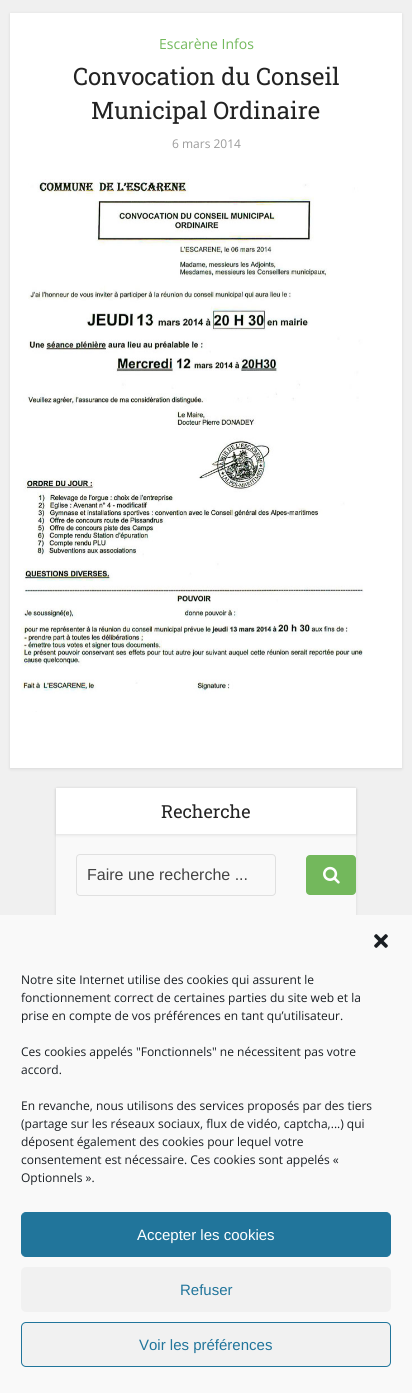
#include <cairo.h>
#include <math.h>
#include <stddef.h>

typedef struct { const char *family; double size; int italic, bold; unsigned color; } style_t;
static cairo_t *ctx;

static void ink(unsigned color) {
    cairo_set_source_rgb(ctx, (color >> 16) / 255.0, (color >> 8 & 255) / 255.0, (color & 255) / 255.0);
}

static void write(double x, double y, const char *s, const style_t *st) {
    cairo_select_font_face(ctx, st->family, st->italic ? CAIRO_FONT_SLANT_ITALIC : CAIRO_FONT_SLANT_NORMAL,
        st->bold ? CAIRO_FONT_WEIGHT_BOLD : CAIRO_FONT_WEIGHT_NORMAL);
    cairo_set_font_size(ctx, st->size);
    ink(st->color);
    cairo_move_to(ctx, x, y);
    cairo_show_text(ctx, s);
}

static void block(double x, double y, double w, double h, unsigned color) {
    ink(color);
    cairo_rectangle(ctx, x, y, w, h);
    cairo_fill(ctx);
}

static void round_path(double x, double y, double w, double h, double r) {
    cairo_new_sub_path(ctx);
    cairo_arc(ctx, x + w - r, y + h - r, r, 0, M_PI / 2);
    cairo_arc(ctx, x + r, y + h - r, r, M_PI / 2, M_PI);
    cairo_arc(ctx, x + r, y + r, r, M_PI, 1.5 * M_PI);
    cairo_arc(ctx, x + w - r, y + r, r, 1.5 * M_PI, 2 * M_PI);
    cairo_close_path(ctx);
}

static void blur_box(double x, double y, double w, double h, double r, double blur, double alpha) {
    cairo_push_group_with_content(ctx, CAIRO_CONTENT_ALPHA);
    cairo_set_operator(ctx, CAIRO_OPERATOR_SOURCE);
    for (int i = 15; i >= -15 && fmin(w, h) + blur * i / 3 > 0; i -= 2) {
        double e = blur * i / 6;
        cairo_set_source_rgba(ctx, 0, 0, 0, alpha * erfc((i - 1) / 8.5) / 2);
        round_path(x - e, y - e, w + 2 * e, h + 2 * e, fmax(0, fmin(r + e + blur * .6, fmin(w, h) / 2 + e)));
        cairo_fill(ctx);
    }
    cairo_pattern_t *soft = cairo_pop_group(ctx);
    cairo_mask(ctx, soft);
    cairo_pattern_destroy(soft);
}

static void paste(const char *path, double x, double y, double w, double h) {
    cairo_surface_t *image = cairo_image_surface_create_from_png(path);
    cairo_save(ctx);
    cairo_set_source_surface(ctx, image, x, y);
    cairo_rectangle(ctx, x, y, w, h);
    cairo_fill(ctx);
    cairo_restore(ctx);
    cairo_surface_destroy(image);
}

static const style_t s1 = {"Open Sans", 14, 0, 0, 0x73b85c};
static const style_t s2 = {"Roboto Slab", 24, 0, 0, 0x232323};
static const style_t s3 = {"Open Sans", 12, 0, 0, 0x9b9b9b};
static const style_t s4 = {"Roboto Slab", 18, 0, 0, 0x232323};
static const style_t s5 = {"Liberation Sans", 16, 0, 0, 0x444444};
static const style_t s6 = {"Open Sans", 12, 0, 0, 0x191e23};
static const style_t s7 = {"Liberation Sans", 15, 0, 0, 0xffffff};
static const style_t s8 = {"Liberation Sans", 15, 0, 0, 0x21759b};

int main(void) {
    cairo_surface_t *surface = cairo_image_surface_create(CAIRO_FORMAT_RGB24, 412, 1393);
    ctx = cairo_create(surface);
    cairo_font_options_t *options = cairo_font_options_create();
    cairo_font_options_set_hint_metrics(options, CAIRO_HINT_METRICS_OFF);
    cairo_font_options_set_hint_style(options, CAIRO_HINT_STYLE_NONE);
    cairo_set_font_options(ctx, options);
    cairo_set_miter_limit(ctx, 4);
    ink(0xf0f0f0);
    cairo_paint(ctx);
    ink(0x000000);
    blur_box(10, 14, 392, 755, 0, 1.5, 0.1);
    block(10, 13, 392, 755, 0xffffff);
    write(159, 49, "Escarène Infos", &s1);
    write(73, 85, "Convocation du Conseil", &s2);
    write(91, 119, "Municipal Ordinaire", &s2);
    write(172, 148, "6 mars 2014", &s3);
    paste("pic1.png", 21, 179, 343, 533);
    ink(0x000000);
    blur_box(56, 789, 300, 128, 0, 1.5, 0.1);
    block(56, 834, 300, 81, 0xf9f9f9);
    ink(0x000000);
    blur_box(56, 789, 300, 46, 0, 1.5, 0.1);
    block(56, 788, 300, 46, 0xffffff);
    write(161, 818, "Recherche", &s4);
    round_path(76.5, 854.5, 199, 41, 3.5);
    ink(0xe0e0e0);
    cairo_set_line_width(ctx, 1);
    cairo_stroke(ctx);
    write(87, 880, "Faire une recherche ...", &s5);
    ink(0x73b85c);
    round_path(306, 855, 50, 40, 4);
    cairo_fill(ctx);
    paste("pic2.png", 323, 866, 17, 18);
    block(0, 915, 412, 478, 0xf9f9f9);
    paste("pic3.png", 374, 934, 14, 14);
    write(21, 984, "Notre site Internet utilise des cookies qui assurent le", &s6);
    write(21, 1002, "fonctionnement correct de certaines parties du site web et la", &s6);
    write(21, 1020, "prise en compte de vos préférences en tant qu’utilisateur.", &s6);
    write(21, 1056, "Ces cookies appelés \"Fonctionnels\" ne nécessitent pas votre", &s6);
    write(21, 1074, "accord.", &s6);
    write(21, 1110, "En revanche, nous utilisons des services proposés par des tiers", &s6);
    write(21, 1128, "(partage sur les réseaux sociaux, flux de vidéo, captcha,...) qui", &s6);
    write(21, 1146, "déposent également des cookies pour lequel votre", &s6);
    write(21, 1164, "consentement est nécessaire. Ces cookies sont appelés «", &s6);
    write(21, 1182, "Optionnels ».", &s6);
    ink(0x21759b);
    round_path(21.5, 1212.5, 369, 44, 4.5);
    cairo_fill_preserve(ctx);
    cairo_stroke(ctx);
    write(137, 1240, "Accepter les cookies", &s7);
    ink(0xf1f1f1);
    round_path(21, 1267, 370, 45, 5);
    cairo_fill(ctx);
    write(180, 1295, "Refuser", &s8);
    ink(0xf1f1f1);
    round_path(21.5, 1322.5, 369, 44, 4.5);
    cairo_fill_preserve(ctx);
    ink(0x21759b);
    cairo_stroke(ctx);
    write(139, 1350, "Voir les préférences", &s8);
    cairo_surface_write_to_png(surface, "screenshot.png");
    cairo_font_options_destroy(options);
    cairo_destroy(ctx);
    cairo_surface_destroy(surface);
    return 0;
}
